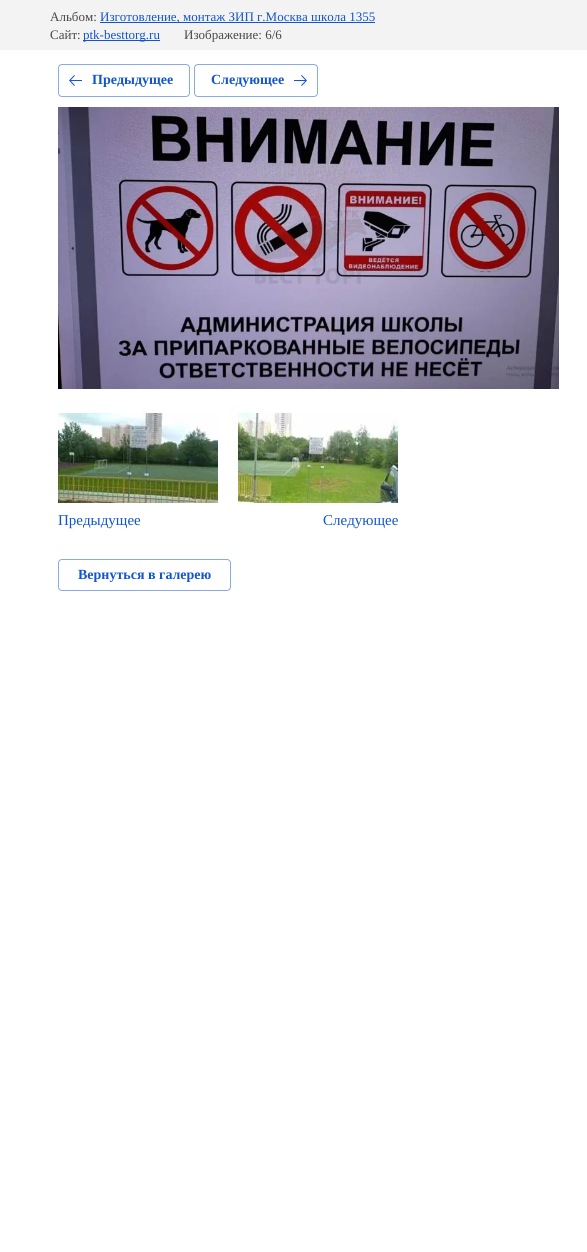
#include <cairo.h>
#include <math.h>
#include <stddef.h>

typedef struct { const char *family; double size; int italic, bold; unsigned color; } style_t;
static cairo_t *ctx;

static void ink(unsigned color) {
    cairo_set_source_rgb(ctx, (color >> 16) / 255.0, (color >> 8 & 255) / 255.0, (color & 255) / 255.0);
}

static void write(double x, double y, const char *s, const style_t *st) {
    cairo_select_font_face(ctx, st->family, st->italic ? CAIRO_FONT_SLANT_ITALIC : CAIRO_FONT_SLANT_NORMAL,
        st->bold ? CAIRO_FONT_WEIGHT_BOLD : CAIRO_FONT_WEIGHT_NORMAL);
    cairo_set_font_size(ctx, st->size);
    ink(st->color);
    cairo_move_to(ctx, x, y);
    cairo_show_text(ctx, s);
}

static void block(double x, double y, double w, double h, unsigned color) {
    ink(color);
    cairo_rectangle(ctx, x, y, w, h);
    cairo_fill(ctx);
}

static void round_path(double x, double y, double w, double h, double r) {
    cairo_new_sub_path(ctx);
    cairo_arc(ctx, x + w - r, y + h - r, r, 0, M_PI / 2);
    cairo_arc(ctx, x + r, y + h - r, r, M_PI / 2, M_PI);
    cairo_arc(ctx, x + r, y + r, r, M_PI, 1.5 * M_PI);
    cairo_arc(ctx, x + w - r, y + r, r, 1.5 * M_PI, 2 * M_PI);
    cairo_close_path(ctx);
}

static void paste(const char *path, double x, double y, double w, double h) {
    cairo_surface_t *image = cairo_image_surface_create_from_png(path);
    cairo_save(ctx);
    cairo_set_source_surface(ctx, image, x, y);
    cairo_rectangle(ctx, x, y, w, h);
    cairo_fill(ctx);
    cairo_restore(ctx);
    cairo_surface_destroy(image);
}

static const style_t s1 = {"Liberation Serif", 13, 0, 0, 0x484848};
static const style_t s2 = {"Liberation Serif", 13, 0, 0, 0x1155cc};
static const style_t s3 = {"Liberation Serif", 14, 0, 1, 0x1155cc};
static const style_t s4 = {"Liberation Serif", 15, 0, 0, 0x1155cc};

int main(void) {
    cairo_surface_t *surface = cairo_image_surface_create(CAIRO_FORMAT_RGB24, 587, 1252);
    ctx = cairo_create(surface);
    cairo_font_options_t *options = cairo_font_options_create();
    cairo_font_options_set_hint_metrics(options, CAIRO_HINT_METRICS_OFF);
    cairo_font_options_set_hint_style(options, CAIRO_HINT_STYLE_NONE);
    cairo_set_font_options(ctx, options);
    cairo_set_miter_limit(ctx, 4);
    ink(0xffffff);
    cairo_paint(ctx);
    block(0, 0, 587, 50, 0xf3f3f3);
    write(50, 21, "Альбом:", &s1);
    block(100, 22, 275, 1, 0x1155cc);
    write(100, 21, "Изготовление, монтаж ЗИП г.Москва школа 1355", &s2);
    write(50, 39, "Сайт:", &s1);
    block(83, 40, 77, 1, 0x1155cc);
    write(83, 39, "ptk-besttorg.ru", &s2);
    write(184, 39, "Изображение: 6/6", &s1);
    round_path(58.5, 64.5, 131, 32, 3.5);
    ink(0x88aae6);
    cairo_set_line_width(ctx, 1);
    cairo_stroke(ctx);
    paste("pic1.png", 69, 75, 13, 11);
    write(92, 84, "Предыдущее", &s3);
    round_path(194.5, 64.5, 123, 32, 3.5);
    ink(0x88aae6);
    cairo_stroke(ctx);
    write(211, 84, "Следующее", &s3);
    paste("pic2.png", 294, 75, 13, 11);
    paste("pic3.png", 58, 107, 501, 282);
    paste("pic4.png", 58, 413, 160, 90);
    write(58, 525, "Предыдущее", &s4);
    paste("pic5.png", 238, 413, 160, 90);
    write(323, 525, "Следующее", &s4);
    round_path(58.5, 559.5, 172, 31, 3.5);
    ink(0x88aae6);
    cairo_stroke(ctx);
    write(78, 579, "Вернуться в галерею", &s3);
    cairo_surface_write_to_png(surface, "screenshot.png");
    cairo_font_options_destroy(options);
    cairo_destroy(ctx);
    cairo_surface_destroy(surface);
    return 0;
}
